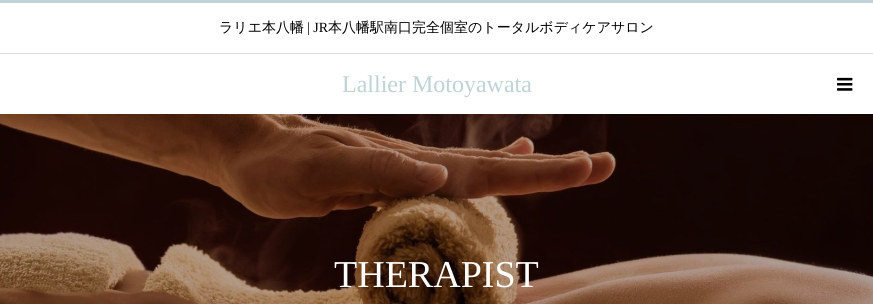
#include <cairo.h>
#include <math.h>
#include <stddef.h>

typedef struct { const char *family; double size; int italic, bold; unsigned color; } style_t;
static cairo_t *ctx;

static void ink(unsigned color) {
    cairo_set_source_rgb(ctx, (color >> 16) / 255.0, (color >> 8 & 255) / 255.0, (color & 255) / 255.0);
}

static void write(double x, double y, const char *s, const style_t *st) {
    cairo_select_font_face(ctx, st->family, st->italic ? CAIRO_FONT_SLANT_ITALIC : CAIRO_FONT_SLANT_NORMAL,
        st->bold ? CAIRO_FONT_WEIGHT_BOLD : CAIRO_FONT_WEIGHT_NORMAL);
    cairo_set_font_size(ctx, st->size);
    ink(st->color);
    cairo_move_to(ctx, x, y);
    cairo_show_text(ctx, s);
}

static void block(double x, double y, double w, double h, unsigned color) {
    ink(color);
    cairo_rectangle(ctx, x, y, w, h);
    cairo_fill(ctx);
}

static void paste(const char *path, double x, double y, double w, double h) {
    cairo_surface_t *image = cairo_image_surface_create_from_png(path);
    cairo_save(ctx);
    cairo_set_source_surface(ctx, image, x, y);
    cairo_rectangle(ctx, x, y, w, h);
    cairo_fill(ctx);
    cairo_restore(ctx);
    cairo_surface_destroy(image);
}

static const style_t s1 = {"WenQuanYi Zen Hei Medium", 14, 0, 0, 0x000000};
static const style_t s2 = {"Liberation Serif", 14, 0, 0, 0x000000};
static const style_t s3 = {"Liberation Serif", 24, 0, 0, 0xbfd3d6};
static const style_t s4 = {"Liberation Serif", 38, 0, 0, 0xffffff};

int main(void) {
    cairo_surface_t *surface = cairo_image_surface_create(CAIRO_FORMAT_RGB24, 873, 304);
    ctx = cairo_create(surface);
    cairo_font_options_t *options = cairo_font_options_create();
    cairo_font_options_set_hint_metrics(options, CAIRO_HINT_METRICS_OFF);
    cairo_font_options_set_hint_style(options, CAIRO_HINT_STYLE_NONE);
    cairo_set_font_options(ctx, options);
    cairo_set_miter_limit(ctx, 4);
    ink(0xffffff);
    cairo_paint(ctx);
    block(0, 0, 873, 3, 0xbfd3d6);
    block(0, 53, 873, 1, 0xdddddd);
    write(219, 32, "ラリエ本八幡", &s1);
    write(307, 32, "| JR", &s2);
    write(328, 32, "本八幡駅南口完全個室のトータルボディケアサロン", &s1);
    write(342, 92, "Lallier Motoyawata", &s3);
    paste("pic1.png", 837, 77, 16, 14);
    paste("pic2.png", 0, 114, 873, 190);
    write(334, 287, "THERAPIST", &s4);
    cairo_surface_write_to_png(surface, "screenshot.png");
    cairo_font_options_destroy(options);
    cairo_destroy(ctx);
    cairo_surface_destroy(surface);
    return 0;
}
